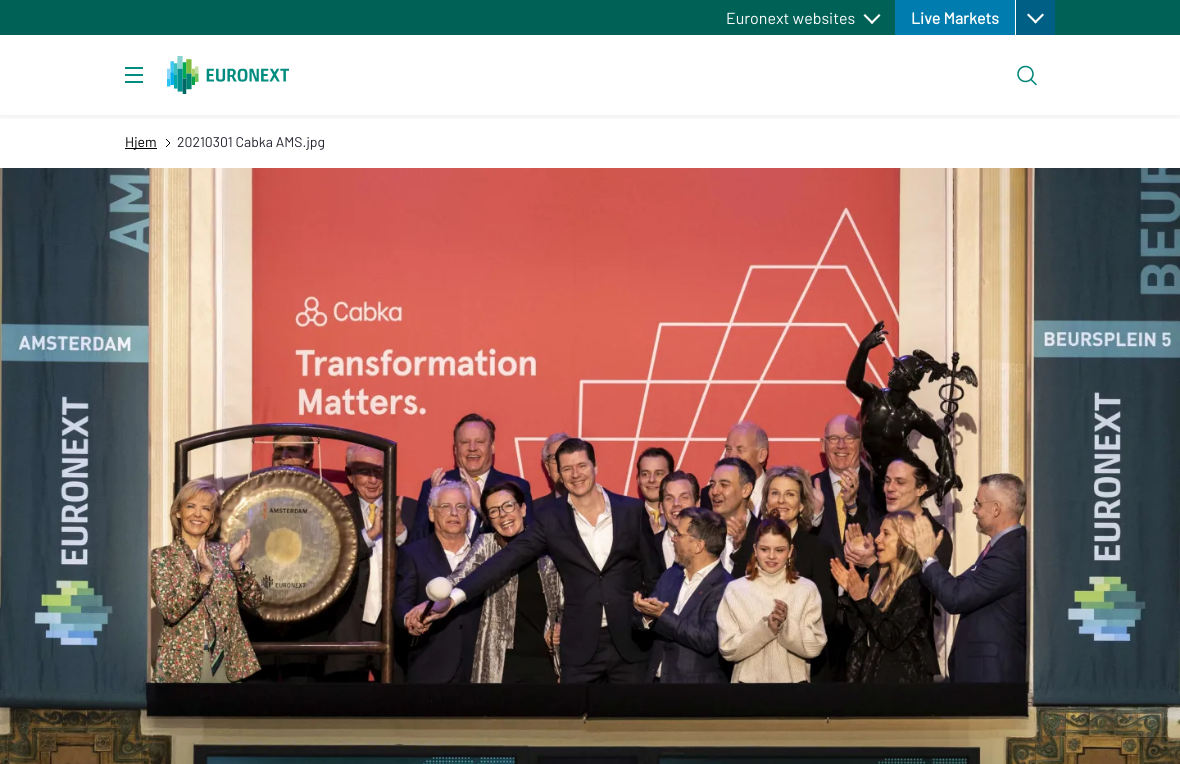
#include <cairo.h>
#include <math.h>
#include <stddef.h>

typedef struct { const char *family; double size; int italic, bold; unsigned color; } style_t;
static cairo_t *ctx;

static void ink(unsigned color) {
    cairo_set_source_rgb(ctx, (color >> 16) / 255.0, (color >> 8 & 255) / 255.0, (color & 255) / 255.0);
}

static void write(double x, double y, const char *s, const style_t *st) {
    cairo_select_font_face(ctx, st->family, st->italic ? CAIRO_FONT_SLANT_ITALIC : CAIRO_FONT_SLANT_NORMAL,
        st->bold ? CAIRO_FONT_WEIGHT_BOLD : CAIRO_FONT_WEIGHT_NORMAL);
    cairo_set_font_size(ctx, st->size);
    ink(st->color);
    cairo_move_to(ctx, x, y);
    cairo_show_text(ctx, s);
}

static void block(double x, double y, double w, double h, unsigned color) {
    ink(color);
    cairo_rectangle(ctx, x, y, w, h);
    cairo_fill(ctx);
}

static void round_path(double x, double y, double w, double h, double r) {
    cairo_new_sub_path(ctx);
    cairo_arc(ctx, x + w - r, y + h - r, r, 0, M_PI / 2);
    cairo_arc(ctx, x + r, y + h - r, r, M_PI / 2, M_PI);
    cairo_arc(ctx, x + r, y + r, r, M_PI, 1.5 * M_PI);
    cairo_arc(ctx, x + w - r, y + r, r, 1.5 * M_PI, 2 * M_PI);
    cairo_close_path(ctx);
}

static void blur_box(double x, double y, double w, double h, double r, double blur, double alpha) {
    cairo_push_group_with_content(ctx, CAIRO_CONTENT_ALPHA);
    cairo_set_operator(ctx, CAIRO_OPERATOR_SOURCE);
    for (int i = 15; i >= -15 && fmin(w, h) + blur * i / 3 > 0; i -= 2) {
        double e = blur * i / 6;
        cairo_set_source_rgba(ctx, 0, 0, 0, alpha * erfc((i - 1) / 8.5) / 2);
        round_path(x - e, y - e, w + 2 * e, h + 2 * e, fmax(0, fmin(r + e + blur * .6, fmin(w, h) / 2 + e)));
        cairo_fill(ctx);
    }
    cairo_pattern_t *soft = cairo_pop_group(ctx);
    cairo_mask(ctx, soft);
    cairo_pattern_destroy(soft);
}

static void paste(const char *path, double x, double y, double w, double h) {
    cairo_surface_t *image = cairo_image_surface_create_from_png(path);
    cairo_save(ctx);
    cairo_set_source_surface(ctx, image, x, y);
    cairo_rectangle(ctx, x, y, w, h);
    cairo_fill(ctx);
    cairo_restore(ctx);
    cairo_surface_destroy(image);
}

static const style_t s1 = {"Barlow", 16, 0, 0, 0xffffff};
static const style_t s2 = {"Barlow", 16, 0, 1, 0xffffff};
static const style_t s3 = {"Barlow", 14, 0, 0, 0x000000};
static const style_t s4 = {"Barlow", 14, 0, 0, 0x252631};

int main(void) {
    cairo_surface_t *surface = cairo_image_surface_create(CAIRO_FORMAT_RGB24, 1180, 764);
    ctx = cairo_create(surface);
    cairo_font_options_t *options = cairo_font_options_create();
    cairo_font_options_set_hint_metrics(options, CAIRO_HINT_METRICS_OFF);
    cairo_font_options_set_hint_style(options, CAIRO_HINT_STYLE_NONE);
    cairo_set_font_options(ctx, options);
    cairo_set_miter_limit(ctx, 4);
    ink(0xffffff);
    cairo_paint(ctx);
    cairo_save(ctx);
    cairo_rectangle(ctx, 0, 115, 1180, 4);
    cairo_clip(ctx);
    ink(0x000000);
    blur_box(0, 35, 1180, 80, 0, 5, 0.1);
    cairo_restore(ctx);
    block(0, 0, 1180, 35, 0x006157);
    write(726, 24, "Euronext websites", &s1);
    cairo_new_path(ctx);
    cairo_move_to(ctx, 879, 14);
    cairo_line_to(ctx, 880.5, 15.5);
    cairo_line_to(ctx, 872, 24);
    cairo_line_to(ctx, 870.5, 22.5);
    cairo_close_path(ctx);
    cairo_fill(ctx);
    cairo_new_path(ctx);
    cairo_move_to(ctx, 865, 14);
    cairo_line_to(ctx, 873.5, 22.5);
    cairo_line_to(ctx, 872, 24);
    cairo_line_to(ctx, 863.5, 15.5);
    cairo_close_path(ctx);
    cairo_fill(ctx);
    block(895, 0, 120, 35, 0x007dae);
    write(911, 24, "Live Markets", &s2);
    block(1016, 0, 39, 35, 0x005f84);
    block(1015, 0, 1, 35, 0xffffff);
    cairo_new_path(ctx);
    cairo_move_to(ctx, 1042.5, 13.5);
    cairo_line_to(ctx, 1044, 15);
    cairo_line_to(ctx, 1035.5, 23.5);
    cairo_line_to(ctx, 1034, 22);
    cairo_close_path(ctx);
    cairo_fill(ctx);
    cairo_new_path(ctx);
    cairo_move_to(ctx, 1028.5, 13.5);
    cairo_line_to(ctx, 1037, 22);
    cairo_line_to(ctx, 1035.5, 23.5);
    cairo_line_to(ctx, 1027, 15);
    cairo_close_path(ctx);
    cairo_fill(ctx);
    block(125, 74, 18, 2, 0x008d7f);
    block(125, 67, 18, 2, 0x008d7f);
    block(125, 81, 18, 2, 0x008d7f);
    paste("pic1.png", 167, 56, 122, 38);
    paste("pic2.png", 1017, 65, 20, 21);
    block(125, 148, 32, 1, 0x000000);
    write(125, 147, "Hjem", &s3);
    paste("pic3.png", 166, 139, 4, 8);
    write(177, 147, "20210301 Cabka AMS.jpg", &s4);
    paste("pic4.png", 0, 168, 1180, 596);
    cairo_surface_write_to_png(surface, "screenshot.png");
    cairo_font_options_destroy(options);
    cairo_destroy(ctx);
    cairo_surface_destroy(surface);
    return 0;
}
